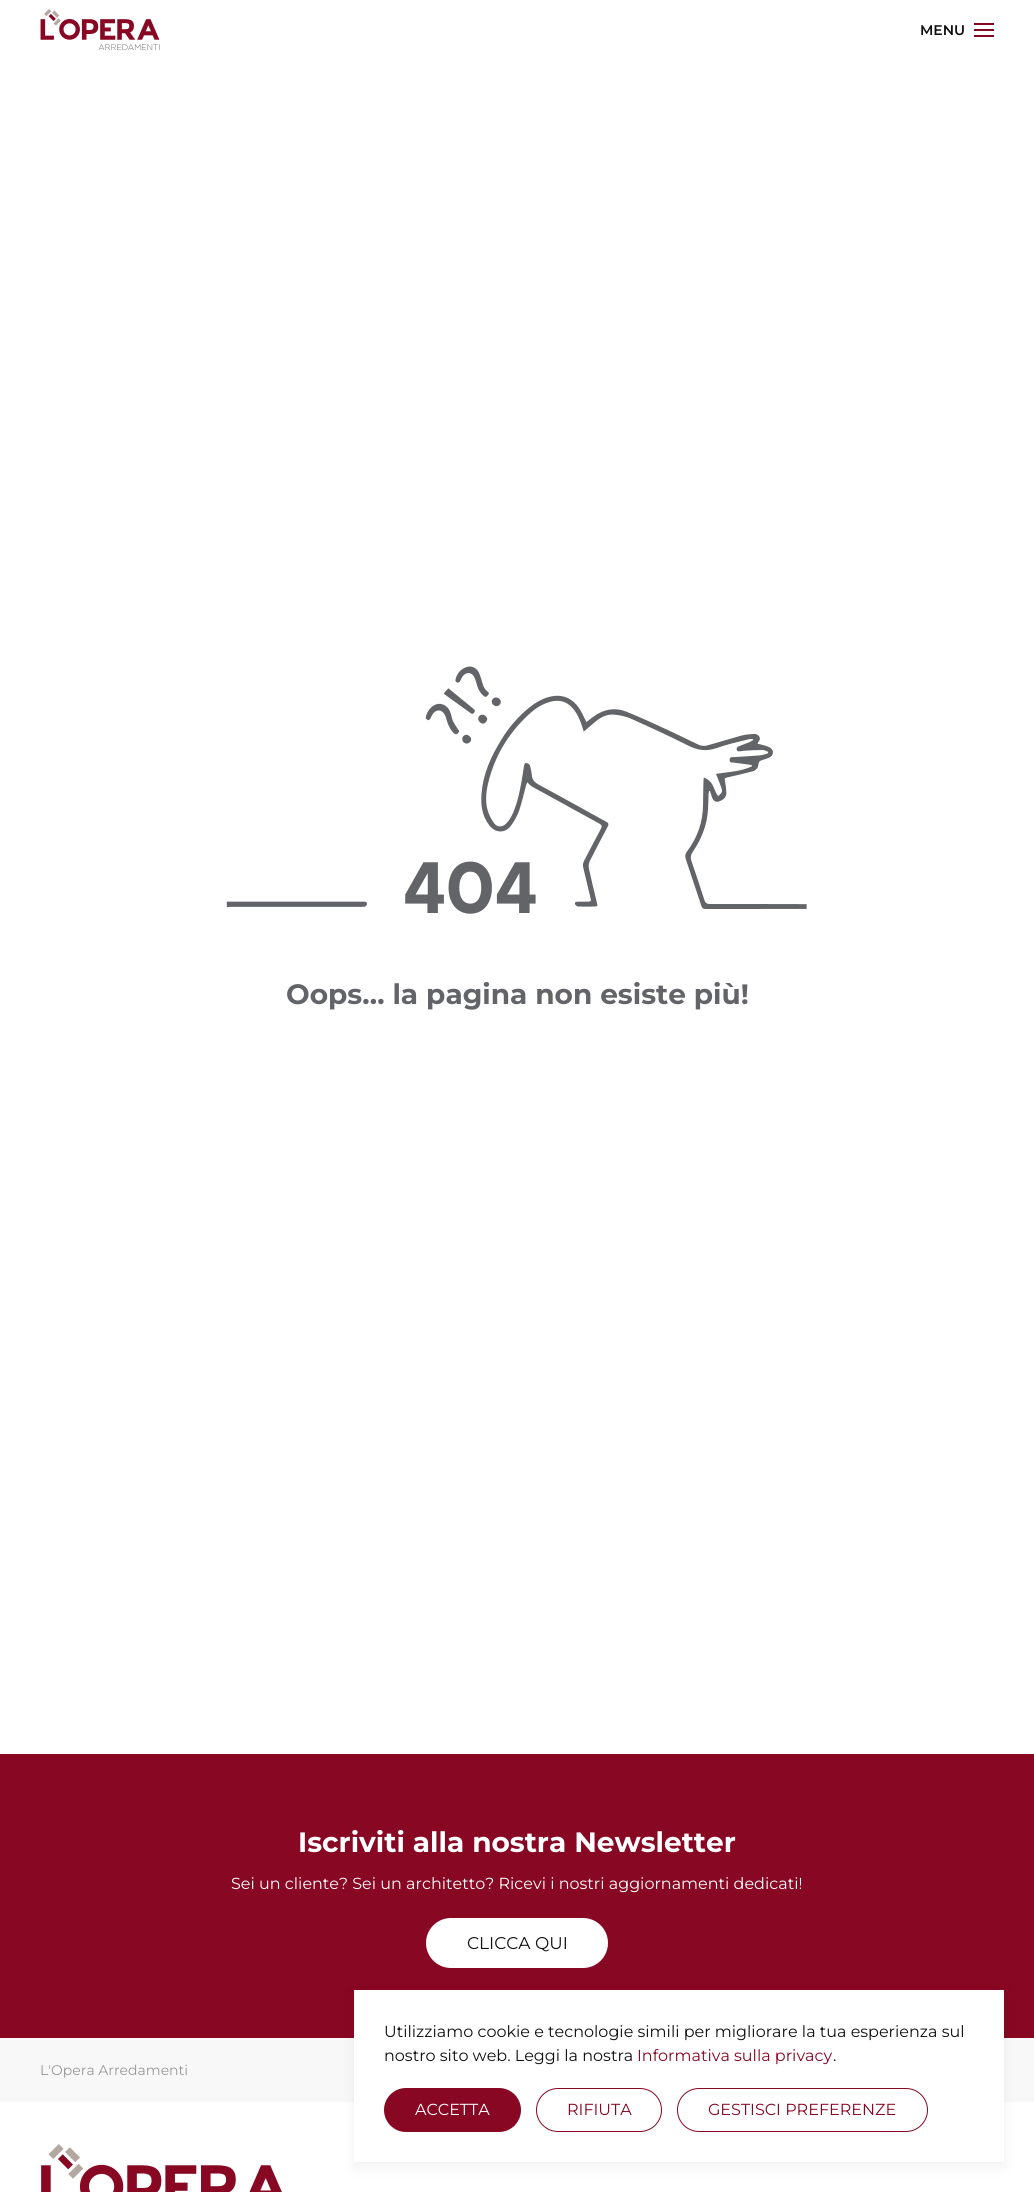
#include <cairo.h>
#include <math.h>
#include <stddef.h>

typedef struct { const char *family; double size; int italic, bold; unsigned color; } style_t;
static cairo_t *ctx;

static void ink(unsigned color) {
    cairo_set_source_rgb(ctx, (color >> 16) / 255.0, (color >> 8 & 255) / 255.0, (color & 255) / 255.0);
}

static void write(double x, double y, const char *s, const style_t *st) {
    cairo_select_font_face(ctx, st->family, st->italic ? CAIRO_FONT_SLANT_ITALIC : CAIRO_FONT_SLANT_NORMAL,
        st->bold ? CAIRO_FONT_WEIGHT_BOLD : CAIRO_FONT_WEIGHT_NORMAL);
    cairo_set_font_size(ctx, st->size);
    ink(st->color);
    cairo_move_to(ctx, x, y);
    cairo_show_text(ctx, s);
}

static void block(double x, double y, double w, double h, unsigned color) {
    ink(color);
    cairo_rectangle(ctx, x, y, w, h);
    cairo_fill(ctx);
}

static void round_path(double x, double y, double w, double h, double r) {
    cairo_new_sub_path(ctx);
    cairo_arc(ctx, x + w - r, y + h - r, r, 0, M_PI / 2);
    cairo_arc(ctx, x + r, y + h - r, r, M_PI / 2, M_PI);
    cairo_arc(ctx, x + r, y + r, r, M_PI, 1.5 * M_PI);
    cairo_arc(ctx, x + w - r, y + r, r, 1.5 * M_PI, 2 * M_PI);
    cairo_close_path(ctx);
}

static void blur_box(double x, double y, double w, double h, double r, double blur, double alpha) {
    cairo_push_group_with_content(ctx, CAIRO_CONTENT_ALPHA);
    cairo_set_operator(ctx, CAIRO_OPERATOR_SOURCE);
    for (int i = 15; i >= -15 && fmin(w, h) + blur * i / 3 > 0; i -= 2) {
        double e = blur * i / 6;
        cairo_set_source_rgba(ctx, 0, 0, 0, alpha * erfc((i - 1) / 8.5) / 2);
        round_path(x - e, y - e, w + 2 * e, h + 2 * e, fmax(0, fmin(r + e + blur * .6, fmin(w, h) / 2 + e)));
        cairo_fill(ctx);
    }
    cairo_pattern_t *soft = cairo_pop_group(ctx);
    cairo_mask(ctx, soft);
    cairo_pattern_destroy(soft);
}

static void paste(const char *path, double x, double y, double w, double h) {
    cairo_surface_t *image = cairo_image_surface_create_from_png(path);
    cairo_save(ctx);
    cairo_set_source_surface(ctx, image, x, y);
    cairo_rectangle(ctx, x, y, w, h);
    cairo_fill(ctx);
    cairo_restore(ctx);
    cairo_surface_destroy(image);
}

static const style_t s1 = {"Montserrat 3 Thin", 14, 0, 0, 0x111111};
static const style_t s2 = {"Montserrat Thin", 28, 0, 0, 0x626467};
static const style_t s3 = {"Montserrat Thin", 28, 0, 0, 0xffffff};
static const style_t s4 = {"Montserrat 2 Thin", 16, 0, 0, 0xffffff};
static const style_t s5 = {"Montserrat 2 Thin", 17, 0, 0, 0x111111};
static const style_t s6 = {"Montserrat 2 Thin", 14, 0, 0, 0x999999};
static const style_t s7 = {"Montserrat 2 Thin", 16, 0, 0, 0x111111};
static const style_t s8 = {"Montserrat 2 Thin", 16, 0, 0, 0x880723};

int main(void) {
    cairo_surface_t *surface = cairo_image_surface_create(CAIRO_FORMAT_RGB24, 1034, 2192);
    ctx = cairo_create(surface);
    cairo_font_options_t *options = cairo_font_options_create();
    cairo_font_options_set_hint_metrics(options, CAIRO_HINT_METRICS_OFF);
    cairo_font_options_set_hint_style(options, CAIRO_HINT_STYLE_NONE);
    cairo_set_font_options(ctx, options);
    cairo_set_miter_limit(ctx, 4);
    ink(0xffffff);
    cairo_paint(ctx);
    paste("pic1.png", 40, 9, 120, 42);
    write(920, 35, "MENU", &s1);
    block(974, 23, 20, 2, 0x880723);
    block(974, 29, 20, 2, 0x880723);
    block(974, 35, 20, 2, 0x880723);
    paste("pic2.png", 226, 666, 581, 248);
    write(286, 1004, "Oops… la pagina non esiste più!", &s2);
    block(0, 1754, 1034, 284, 0x880723);
    write(298, 1852, "Iscriviti alla nostra Newsletter", &s3);
    write(231, 1889, "Sei un cliente? Sei un architetto? Ricevi i nostri aggiornamenti dedicati!", &s4);
    round_path(426, 1918, 182, 50, 25);
    cairo_fill(ctx);
    write(467, 1949, "CLICCA QUI", &s5);
    block(0, 2038, 1034, 64, 0xf8f8f8);
    write(40, 2075, "L'Opera Arredamenti", &s6);
    paste("pic3.png", 41, 2144, 241, 48);
    ink(0x000000);
    blur_box(354, 1995, 650, 172, 0, 7.5, 0.06);
    block(354, 1990, 650, 172, 0xffffff);
    write(384, 2037, "Utilizziamo cookie e tecnologie simili per migliorare la tua esperienza sul", &s7);
    write(384, 2061, "nostro sito web. Leggi la nostra", &s7);
    write(637, 2061, "Informativa sulla privacy", &s8);
    write(833, 2061, ".", &s7);
    ink(0x880723);
    round_path(384, 2088, 137, 44, 22);
    cairo_fill(ctx);
    write(415, 2115, "ACCETTA", &s4);
    round_path(536.5, 2088.5, 125, 43, 21.5);
    ink(0x880723);
    cairo_set_line_width(ctx, 1);
    cairo_stroke(ctx);
    write(567, 2115, "RIFIUTA", &s8);
    round_path(677.5, 2088.5, 250, 43, 21.5);
    cairo_stroke(ctx);
    write(708, 2115, "GESTISCI PREFERENZE", &s8);
    cairo_surface_write_to_png(surface, "screenshot.png");
    cairo_font_options_destroy(options);
    cairo_destroy(ctx);
    cairo_surface_destroy(surface);
    return 0;
}
